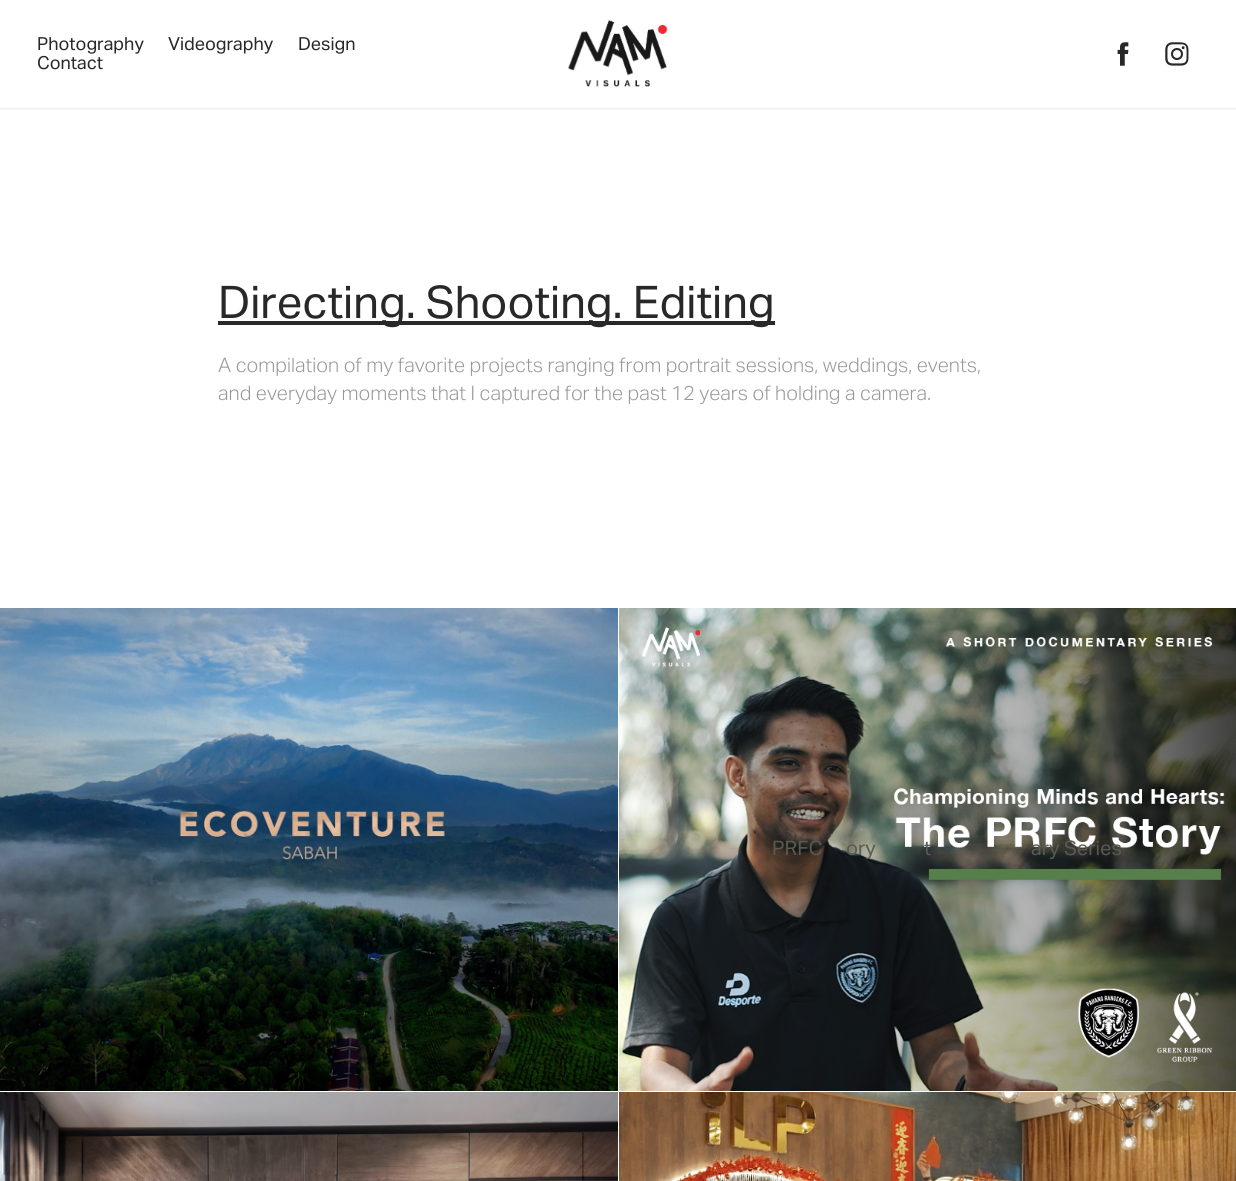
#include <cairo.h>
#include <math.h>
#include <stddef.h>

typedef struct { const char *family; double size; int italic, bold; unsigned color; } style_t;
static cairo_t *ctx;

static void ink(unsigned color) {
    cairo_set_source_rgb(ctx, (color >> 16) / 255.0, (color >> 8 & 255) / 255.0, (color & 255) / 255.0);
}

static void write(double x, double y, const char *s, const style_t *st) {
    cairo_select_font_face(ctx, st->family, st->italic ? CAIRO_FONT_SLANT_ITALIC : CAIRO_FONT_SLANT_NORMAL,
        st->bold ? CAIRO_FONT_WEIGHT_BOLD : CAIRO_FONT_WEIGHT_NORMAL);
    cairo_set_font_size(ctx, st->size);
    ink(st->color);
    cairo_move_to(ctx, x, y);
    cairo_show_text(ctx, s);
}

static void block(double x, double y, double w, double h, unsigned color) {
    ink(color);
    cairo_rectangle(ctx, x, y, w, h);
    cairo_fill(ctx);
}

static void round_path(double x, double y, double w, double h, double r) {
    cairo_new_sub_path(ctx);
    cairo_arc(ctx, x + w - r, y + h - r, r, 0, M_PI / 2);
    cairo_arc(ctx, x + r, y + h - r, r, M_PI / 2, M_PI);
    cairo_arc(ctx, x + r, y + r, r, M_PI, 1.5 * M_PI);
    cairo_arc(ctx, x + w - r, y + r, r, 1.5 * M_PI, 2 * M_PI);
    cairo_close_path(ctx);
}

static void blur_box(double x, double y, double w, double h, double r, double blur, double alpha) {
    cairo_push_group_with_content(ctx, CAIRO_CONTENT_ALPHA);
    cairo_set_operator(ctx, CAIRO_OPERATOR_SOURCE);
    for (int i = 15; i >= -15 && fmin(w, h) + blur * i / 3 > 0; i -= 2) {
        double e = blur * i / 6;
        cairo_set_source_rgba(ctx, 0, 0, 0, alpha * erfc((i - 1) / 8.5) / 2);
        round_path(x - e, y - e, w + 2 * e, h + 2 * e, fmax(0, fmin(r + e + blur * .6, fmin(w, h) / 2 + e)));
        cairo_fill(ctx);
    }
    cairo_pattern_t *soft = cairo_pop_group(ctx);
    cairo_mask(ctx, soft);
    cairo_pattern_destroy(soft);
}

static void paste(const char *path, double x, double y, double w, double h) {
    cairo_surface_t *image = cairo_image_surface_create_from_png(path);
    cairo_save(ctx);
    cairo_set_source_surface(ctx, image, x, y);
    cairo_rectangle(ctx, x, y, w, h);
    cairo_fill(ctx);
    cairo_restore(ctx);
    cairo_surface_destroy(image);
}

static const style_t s1 = {"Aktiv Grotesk", 18, 0, 0, 0x282828};
static const style_t s2 = {"Aktiv Grotesk", 45, 0, 0, 0x282828};
static const style_t s3 = {"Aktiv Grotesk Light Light", 20, 0, 0, 0x999999};
static const style_t s4 = {"Aktiv Grotesk", 20, 0, 0, 0x595a52};

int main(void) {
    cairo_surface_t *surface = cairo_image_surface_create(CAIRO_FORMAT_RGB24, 1236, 1181);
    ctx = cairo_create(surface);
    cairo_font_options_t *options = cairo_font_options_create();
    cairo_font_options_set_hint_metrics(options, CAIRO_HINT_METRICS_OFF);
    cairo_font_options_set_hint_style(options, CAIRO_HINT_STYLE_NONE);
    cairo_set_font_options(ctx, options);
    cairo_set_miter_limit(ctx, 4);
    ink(0xffffff);
    cairo_paint(ctx);
    cairo_save(ctx);
    cairo_rectangle(ctx, 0, 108, 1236, 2);
    cairo_clip(ctx);
    ink(0x000000);
    blur_box(0, 1, 1236, 108, 0, 1.5, 0.1);
    cairo_restore(ctx);
    write(37, 50, "Photography", &s1);
    write(168, 50, "Videography", &s1);
    write(298, 50, "Design", &s1);
    write(37, 69, "Contact", &s1);
    paste("pic1.png", 568, 20, 100, 67);
    paste("pic2.png", 1117, 42, 12, 24);
    paste("pic3.png", 1165, 42, 24, 24);
    block(218, 321, 557, 4, 0x282828);
    write(218, 318, "Directing. Shooting. Editing", &s2);
    write(218, 372, "A compilation of my favorite projects ranging from portrait sessions, weddings, events,", &s3);
    write(218, 400, "and everyday moments that I captured for the past 12 years of holding a camera.", &s3);
    paste("pic4.png", 0, 608, 618, 483);
    paste("pic5.png", 619, 608, 617, 483);
    write(772, 855, "PRFC", &s4);
    write(846, 855, "ory", &s4);
    write(924, 855, "t", &s4);
    write(1031, 855, "ary Series", &s4);
    paste("pic6.png", 0, 1092, 618, 89);
    paste("pic7.png", 619, 1092, 617, 89);
    cairo_set_source_rgba(ctx, 0, 0, 0, 0.1);
    cairo_arc(ctx, 1166, 1111, 30, 0, 2 * M_PI);
    cairo_fill(ctx);
    paste("pic8.png", 1158, 1100, 16, 23);
    cairo_surface_write_to_png(surface, "screenshot.png");
    cairo_font_options_destroy(options);
    cairo_destroy(ctx);
    cairo_surface_destroy(surface);
    return 0;
}
